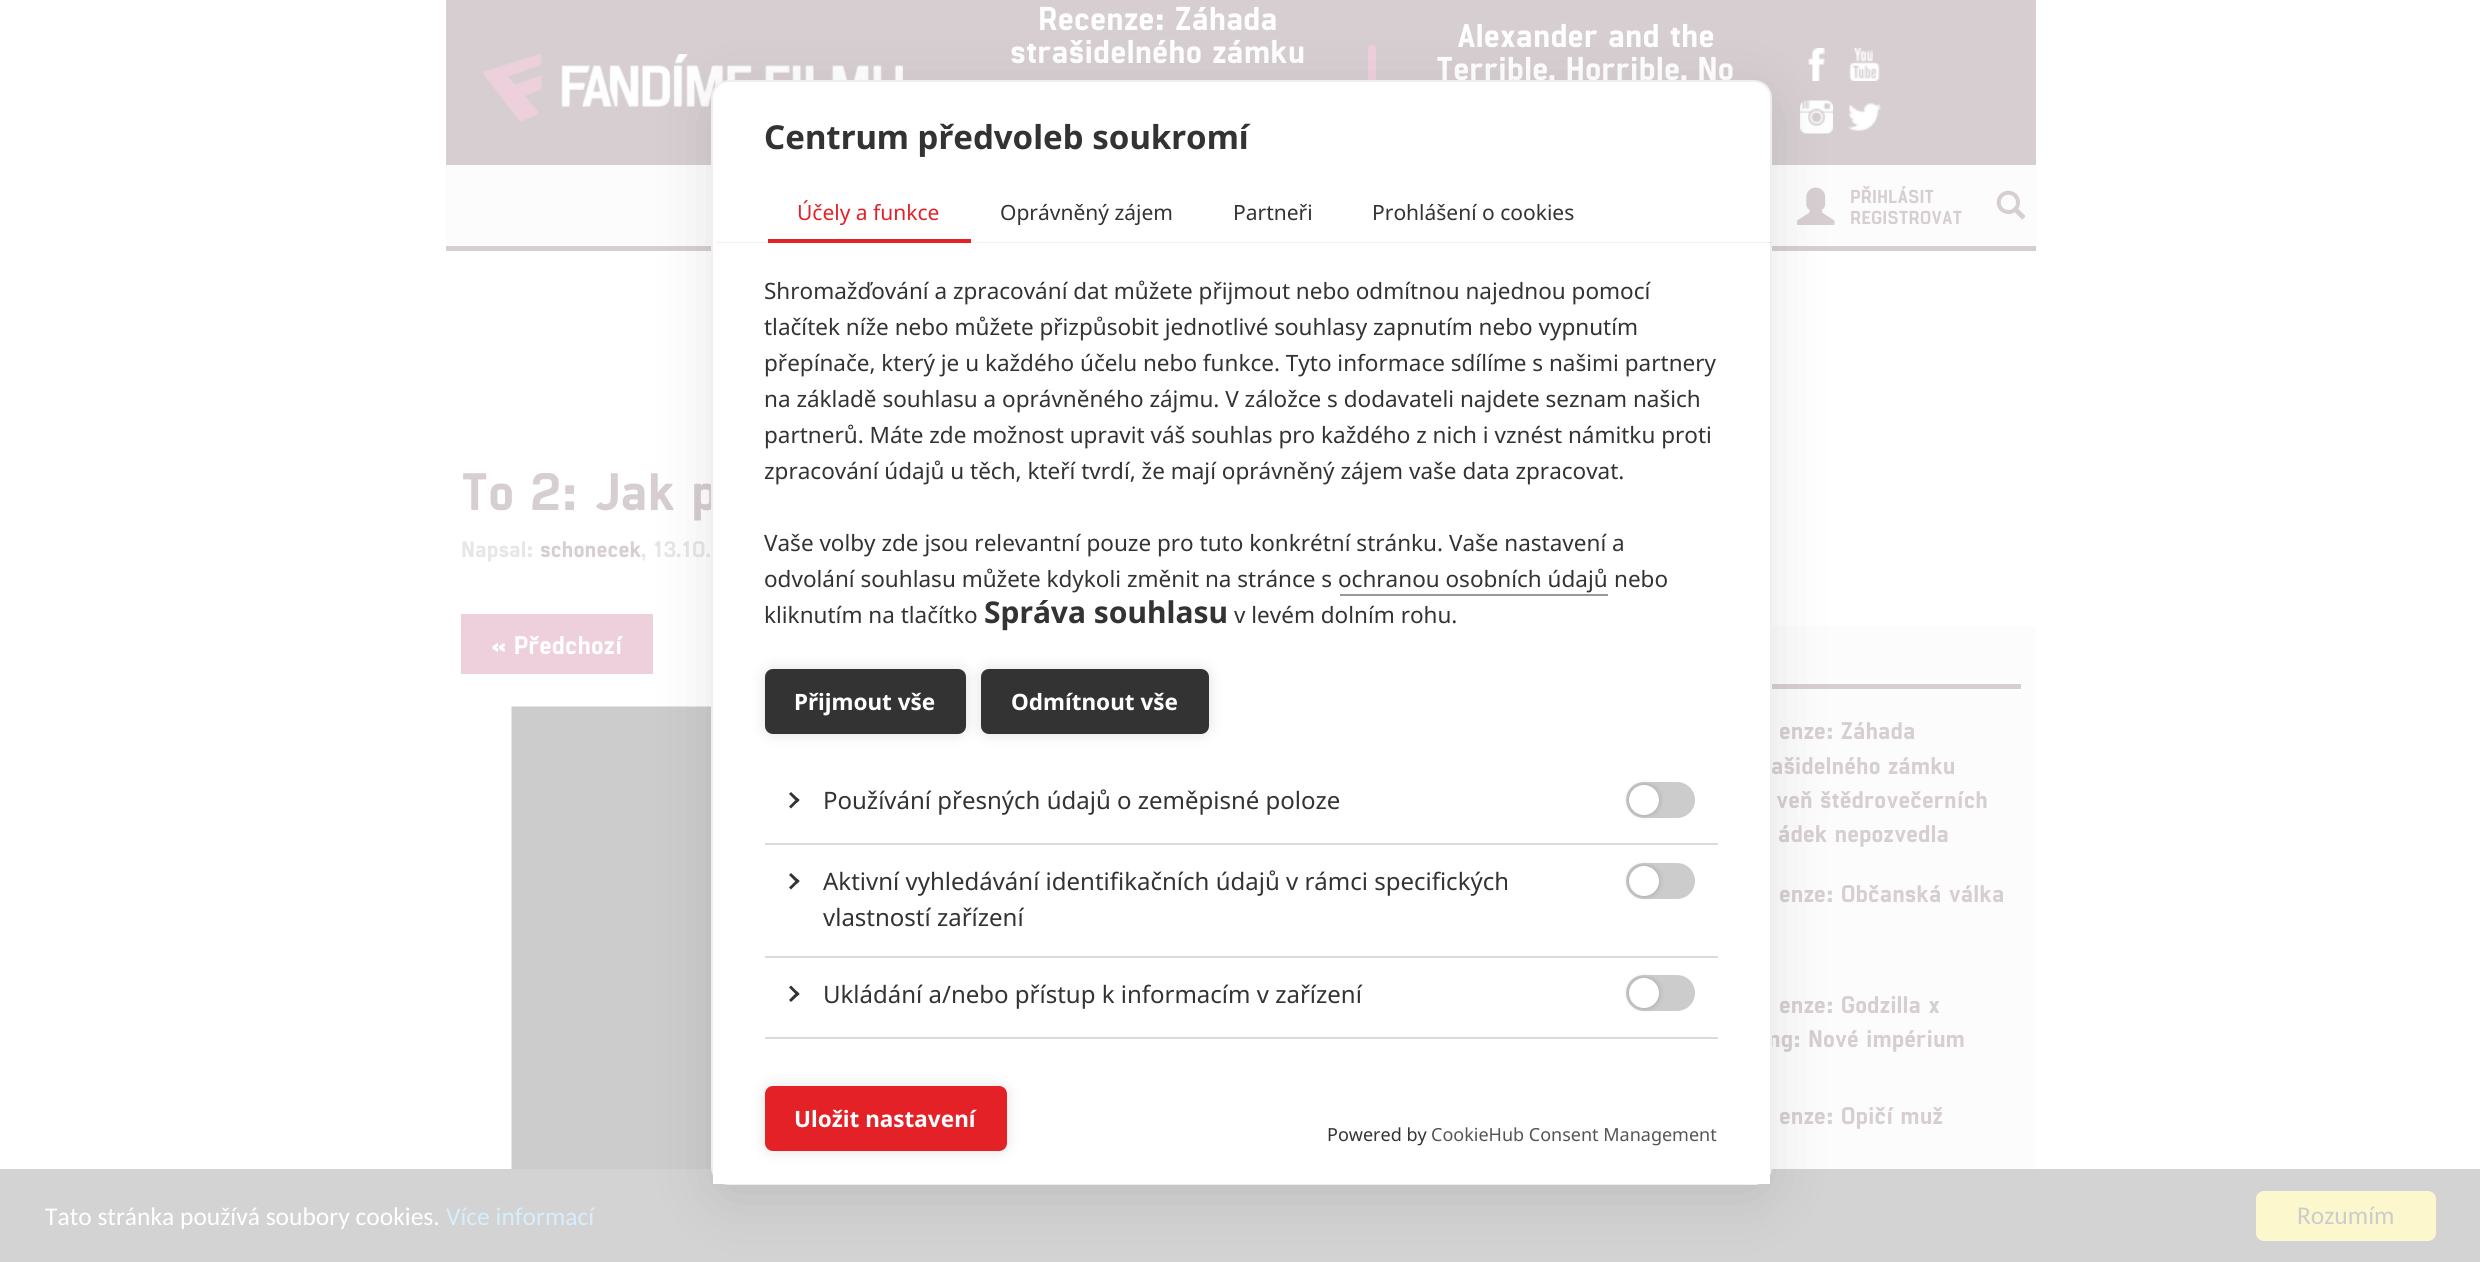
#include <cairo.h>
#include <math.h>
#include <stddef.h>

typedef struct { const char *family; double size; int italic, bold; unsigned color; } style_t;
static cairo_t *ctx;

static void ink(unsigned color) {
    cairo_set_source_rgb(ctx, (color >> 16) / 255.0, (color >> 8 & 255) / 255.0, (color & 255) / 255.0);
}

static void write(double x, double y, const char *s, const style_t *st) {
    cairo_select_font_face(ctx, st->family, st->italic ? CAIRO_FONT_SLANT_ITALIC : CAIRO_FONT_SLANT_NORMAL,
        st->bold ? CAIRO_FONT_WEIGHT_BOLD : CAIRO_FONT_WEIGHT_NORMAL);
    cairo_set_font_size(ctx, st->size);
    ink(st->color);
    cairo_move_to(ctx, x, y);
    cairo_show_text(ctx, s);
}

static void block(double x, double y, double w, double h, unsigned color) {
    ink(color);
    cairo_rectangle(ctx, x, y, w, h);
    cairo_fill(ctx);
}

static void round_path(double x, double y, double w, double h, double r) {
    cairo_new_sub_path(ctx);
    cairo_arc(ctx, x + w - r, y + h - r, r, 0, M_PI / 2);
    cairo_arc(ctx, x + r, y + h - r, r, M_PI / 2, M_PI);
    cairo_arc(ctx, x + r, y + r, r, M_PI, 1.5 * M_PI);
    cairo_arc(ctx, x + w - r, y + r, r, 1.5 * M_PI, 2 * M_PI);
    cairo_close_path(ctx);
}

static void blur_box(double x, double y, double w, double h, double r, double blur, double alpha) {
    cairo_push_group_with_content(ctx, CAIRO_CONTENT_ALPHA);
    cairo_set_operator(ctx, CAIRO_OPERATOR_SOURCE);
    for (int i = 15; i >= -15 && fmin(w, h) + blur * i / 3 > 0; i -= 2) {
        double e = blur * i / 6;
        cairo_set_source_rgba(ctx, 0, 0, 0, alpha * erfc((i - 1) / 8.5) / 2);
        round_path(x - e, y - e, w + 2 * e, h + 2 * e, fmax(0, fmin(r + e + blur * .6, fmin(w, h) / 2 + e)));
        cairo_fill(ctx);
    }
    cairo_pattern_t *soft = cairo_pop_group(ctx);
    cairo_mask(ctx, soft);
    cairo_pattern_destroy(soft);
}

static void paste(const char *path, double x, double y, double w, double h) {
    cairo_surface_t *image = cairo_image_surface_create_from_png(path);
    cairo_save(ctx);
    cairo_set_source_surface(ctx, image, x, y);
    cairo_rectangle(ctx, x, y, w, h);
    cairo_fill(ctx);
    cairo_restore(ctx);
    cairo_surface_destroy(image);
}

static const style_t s1 = {"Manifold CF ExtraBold", 33, 0, 0, 0xffffff};
static const style_t s2 = {"Manifold CF ExtraBold", 18.75, 0, 0, 0xd6ced1};
static const style_t s3 = {"Manifold CF ExtraBold", 52.5, 0, 0, 0xd6ced1};
static const style_t s4 = {"Manifold CF ExtraBold", 22.5, 0, 0, 0xe6e6e6};
static const style_t s5 = {"Manifold CF ExtraBold", 22.5, 0, 0, 0xd6ced1};
static const style_t s6 = {"Manifold CF ExtraBold", 25.5, 0, 0, 0xffffff};
static const style_t s7 = {"Manifold CF ExtraBold", 24, 0, 0, 0xd6ced1};
static const style_t s8 = {"Noto Sans", 33, 0, 1, 0x333333};
static const style_t s9 = {"Noto Sans", 21, 0, 0, 0xe42127};
static const style_t s10 = {"Noto Sans", 21, 0, 0, 0x333333};
static const style_t s11 = {"Noto Sans", 22.5, 0, 0, 0x333333};
static const style_t s12 = {"Noto Sans", 30, 0, 1, 0x333333};
static const style_t s13 = {"Noto Sans", 22.5, 0, 1, 0xffffff};
static const style_t s14 = {"Noto Sans", 24, 0, 0, 0x333333};
static const style_t s15 = {"Noto Sans", 18, 0, 0, 0x333333};
static const style_t s16 = {"Noto Sans", 18, 0, 0, 0x555555};
static const style_t s17 = {"Carlito", 25.5, 0, 0, 0xffffff};
static const style_t s18 = {"Carlito", 25.5, 0, 0, 0xd6eefc};
static const style_t s19 = {"Carlito", 25.5, 0, 0, 0xcccccc};

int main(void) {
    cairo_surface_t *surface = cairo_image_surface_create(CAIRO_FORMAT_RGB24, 2480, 1262);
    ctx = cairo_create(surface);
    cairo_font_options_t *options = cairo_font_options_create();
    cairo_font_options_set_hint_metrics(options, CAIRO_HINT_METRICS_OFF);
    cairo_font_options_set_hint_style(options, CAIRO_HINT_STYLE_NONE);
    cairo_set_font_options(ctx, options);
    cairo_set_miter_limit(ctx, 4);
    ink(0xffffff);
    cairo_paint(ctx);
    block(446, 0, 1590, 165, 0xd6ced1);
    paste("pic1.png", 483, 54, 420, 68);
    write(1038, 30, "Recenze: Záhada", &s1);
    write(1010, 63, "strašidelného zámku", &s1);
    ink(0xedd0db);
    round_path(1368, 45, 8, 75, 4);
    cairo_fill(ctx);
    write(1457, 47, "Alexander and the", &s1);
    write(1436, 80, "Terrible, Horrible, No", &s1);
    paste("pic2.png", 1808, 48, 17, 33);
    paste("pic3.png", 1849, 48, 31, 33);
    paste("pic4.png", 1800, 100, 33, 34);
    paste("pic5.png", 1848, 103, 33, 28);
    block(446, 165, 1590, 81, 0xfcfcfc);
    block(446, 246, 1590, 5, 0xd6ced1);
    block(2036, 167, 1, 78, 0xfcfcfc);
    paste("pic6.png", 1797, 187, 38, 38);
    write(1850, 203, "PŘIHLÁSIT", &s2);
    write(1850, 224, "REGISTROVAT", &s2);
    paste("pic7.png", 1996, 190, 30, 30);
    write(461, 510, "To 2: Jak p", &s3);
    write(461, 557, "Napsal:", &s4);
    write(540, 557, "schonecek", &s5);
    write(641, 557, ", 13.10.", &s4);
    block(461, 614, 192, 60, 0xedd0db);
    write(491, 654, "« Předchozí", &s6);
    paste("pic8.png", 511, 706, 201, 463);
    block(1771, 626, 265, 543, 0xfcfcfc);
    block(1772, 684, 249, 5, 0xd6ced1);
    write(1779, 739, "enze: Záhada", &s7);
    write(1771, 774, "ašidelného zámku", &s7);
    write(1776, 808, "veň štědrovečerních", &s7);
    write(1778, 842, "ádek nepozvedla", &s7);
    write(1779, 902, "enze: Občanská válka", &s7);
    write(1779, 1013, "enze: Godzilla x", &s7);
    write(1768, 1047, "ng: Nové impérium", &s7);
    write(1779, 1124, "enze: Opičí muž", &s7);
    block(0, 1169, 2480, 93, 0xd3d3d3);
    ink(0x000000);
    blur_box(711, 95, 1061, 1105, 18, 30, 0.1);
    ink(0xffffff);
    round_path(712, 81, 1059, 1103, 17);
    cairo_fill_preserve(ctx);
    ink(0xeeeeee);
    cairo_stroke(ctx);
    write(764, 149, "Centrum předvoleb soukromí", &s8);
    cairo_set_source_rgba(ctx, 0.439, 0.439, 0.439, 0.1);
    cairo_rectangle(ctx, 716, 242, 1056, 1);
    cairo_fill(ctx);
    block(768, 239, 203, 4, 0xe42127);
    write(797, 220, "Účely a funkce", &s9);
    write(1000, 220, "Oprávněný zájem", &s10);
    write(1233, 220, "Partneři", &s10);
    write(1372, 220, "Prohlášení o cookies", &s10);
    write(764, 299, "Shromažďování a zpracování dat můžete přijmout nebo odmítnou najednou pomocí", &s11);
    write(764, 335, "tlačítek níže nebo můžete přizpůsobit jednotlivé souhlasy zapnutím nebo vypnutím", &s11);
    write(764, 371, "přepínače, který je u každého účelu nebo funkce. Tyto informace sdílíme s našimi partnery", &s11);
    write(764, 407, "na základě souhlasu a oprávněného zájmu. V záložce s dodavateli najdete seznam našich", &s11);
    write(764, 443, "partnerů. Máte zde možnost upravit váš souhlas pro každého z nich i vznést námitku proti", &s11);
    write(764, 479, "zpracování údajů u těch, kteří tvrdí, že mají oprávněný zájem vaše data zpracovat.", &s11);
    write(764, 551, "Vaše volby zde jsou relevantní pouze pro tuto konkrétní stránku. Vaše nastavení a", &s11);
    write(764, 587, "odvolání souhlasu můžete kdykoli změnit na stránce s", &s11);
    write(1338, 587, "ochranou osobních údajů", &s11);
    block(1340, 594, 268, 2, 0x999999);
    write(1614, 587, "nebo", &s11);
    write(764, 623, "kliknutím na tlačítko", &s11);
    write(984, 623, "Správa souhlasu", &s12);
    write(1234, 623, "v levém dolním rohu.", &s11);
    ink(0x000000);
    blur_box(765, 669, 201, 65, 8, 7.5, 0.12);
    ink(0x333333);
    round_path(765, 669, 201, 65, 8);
    cairo_fill(ctx);
    write(794, 710, "Přijmout vše", &s13);
    ink(0x000000);
    blur_box(981, 669, 228, 65, 8, 7.5, 0.12);
    ink(0x333333);
    round_path(981, 669, 228, 65, 8);
    cairo_fill(ctx);
    write(1011, 710, "Odmítnout vše", &s13);
    block(765, 843, 953, 2, 0xd9dbdc);
    ink(0x333333);
    cairo_new_path(ctx);
    cairo_move_to(ctx, 789, 794);
    cairo_line_to(ctx, 791, 792);
    cairo_line_to(ctx, 799.5, 800);
    cairo_line_to(ctx, 797.5, 802.5);
    cairo_close_path(ctx);
    cairo_fill(ctx);
    cairo_new_path(ctx);
    cairo_move_to(ctx, 789, 806.5);
    cairo_line_to(ctx, 797.5, 798);
    cairo_line_to(ctx, 799.5, 800);
    cairo_line_to(ctx, 791, 808.5);
    cairo_close_path(ctx);
    cairo_fill(ctx);
    write(823, 809, "Používání přesných údajů o zeměpisné poloze", &s14);
    ink(0xcccccc);
    round_path(1626, 782, 69, 36, 18);
    cairo_fill(ctx);
    ink(0x000000);
    blur_box(1629, 785, 30, 30, 15, 3, 0.2);
    ink(0xffffff);
    cairo_arc(ctx, 1644, 800, 15, 0, 2 * M_PI);
    cairo_fill(ctx);
    block(765, 956, 953, 2, 0xd9dbdc);
    ink(0x333333);
    cairo_new_path(ctx);
    cairo_move_to(ctx, 789, 875);
    cairo_line_to(ctx, 791, 873);
    cairo_line_to(ctx, 799.5, 881);
    cairo_line_to(ctx, 797.5, 883.5);
    cairo_close_path(ctx);
    cairo_fill(ctx);
    cairo_new_path(ctx);
    cairo_move_to(ctx, 789, 887.5);
    cairo_line_to(ctx, 797.5, 879);
    cairo_line_to(ctx, 799.5, 881);
    cairo_line_to(ctx, 791, 889.5);
    cairo_close_path(ctx);
    cairo_fill(ctx);
    write(823, 890, "Aktivní vyhledávání identifikačních údajů v rámci specifických", &s14);
    write(823, 926, "vlastností zařízení", &s14);
    ink(0xcccccc);
    round_path(1626, 863, 69, 36, 18);
    cairo_fill(ctx);
    ink(0x000000);
    blur_box(1629, 866, 30, 30, 15, 3, 0.2);
    ink(0xffffff);
    cairo_arc(ctx, 1644, 881, 15, 0, 2 * M_PI);
    cairo_fill(ctx);
    block(765, 1037, 953, 2, 0xd9dbdc);
    ink(0x333333);
    cairo_new_path(ctx);
    cairo_move_to(ctx, 789, 987.5);
    cairo_line_to(ctx, 791, 985.5);
    cairo_line_to(ctx, 799.5, 994);
    cairo_line_to(ctx, 797.5, 996);
    cairo_close_path(ctx);
    cairo_fill(ctx);
    cairo_new_path(ctx);
    cairo_move_to(ctx, 789, 1000);
    cairo_line_to(ctx, 797.5, 991.5);
    cairo_line_to(ctx, 799.5, 994);
    cairo_line_to(ctx, 791, 1002);
    cairo_close_path(ctx);
    cairo_fill(ctx);
    write(823, 1003, "Ukládání a/nebo přístup k informacím v zařízení", &s14);
    ink(0xcccccc);
    round_path(1626, 975, 69, 36, 18);
    cairo_fill(ctx);
    ink(0x000000);
    blur_box(1629, 978, 30, 30, 15, 3, 0.2);
    ink(0xffffff);
    cairo_arc(ctx, 1644, 993, 15, 0, 2 * M_PI);
    cairo_fill(ctx);
    block(713, 1169, 1057, 15, 0xffffff);
    ink(0x000000);
    blur_box(765, 1086, 242, 65, 8, 7.5, 0.12);
    ink(0xe42127);
    round_path(765, 1086, 242, 65, 8);
    cairo_fill(ctx);
    write(794, 1127, "Uložit nastavení", &s13);
    write(1327, 1141, "Powered by", &s15);
    write(1431, 1141, "CookieHub Consent Management", &s16);
    write(45, 1225, "Tato stránka používá soubory cookies.", &s17);
    write(446, 1225, "Více informací", &s18);
    ink(0xfcf7cc);
    round_path(2256, 1191, 180, 50, 8);
    cairo_fill(ctx);
    write(2297, 1224, "Rozumím", &s19);
    cairo_surface_write_to_png(surface, "screenshot.png");
    cairo_font_options_destroy(options);
    cairo_destroy(ctx);
    cairo_surface_destroy(surface);
    return 0;
}
